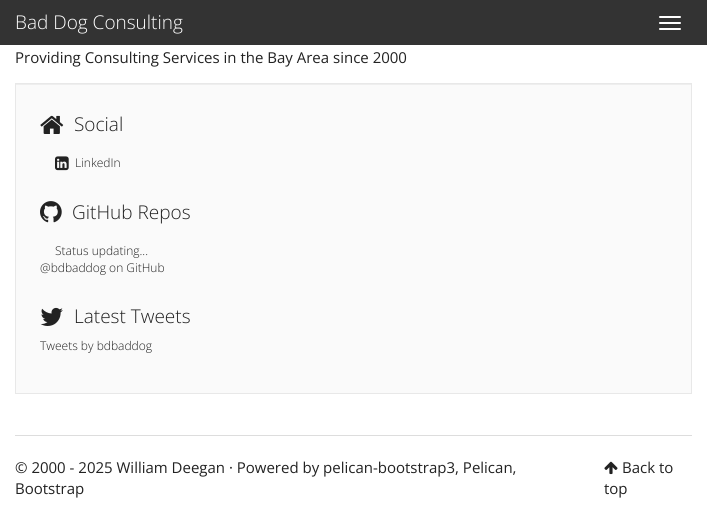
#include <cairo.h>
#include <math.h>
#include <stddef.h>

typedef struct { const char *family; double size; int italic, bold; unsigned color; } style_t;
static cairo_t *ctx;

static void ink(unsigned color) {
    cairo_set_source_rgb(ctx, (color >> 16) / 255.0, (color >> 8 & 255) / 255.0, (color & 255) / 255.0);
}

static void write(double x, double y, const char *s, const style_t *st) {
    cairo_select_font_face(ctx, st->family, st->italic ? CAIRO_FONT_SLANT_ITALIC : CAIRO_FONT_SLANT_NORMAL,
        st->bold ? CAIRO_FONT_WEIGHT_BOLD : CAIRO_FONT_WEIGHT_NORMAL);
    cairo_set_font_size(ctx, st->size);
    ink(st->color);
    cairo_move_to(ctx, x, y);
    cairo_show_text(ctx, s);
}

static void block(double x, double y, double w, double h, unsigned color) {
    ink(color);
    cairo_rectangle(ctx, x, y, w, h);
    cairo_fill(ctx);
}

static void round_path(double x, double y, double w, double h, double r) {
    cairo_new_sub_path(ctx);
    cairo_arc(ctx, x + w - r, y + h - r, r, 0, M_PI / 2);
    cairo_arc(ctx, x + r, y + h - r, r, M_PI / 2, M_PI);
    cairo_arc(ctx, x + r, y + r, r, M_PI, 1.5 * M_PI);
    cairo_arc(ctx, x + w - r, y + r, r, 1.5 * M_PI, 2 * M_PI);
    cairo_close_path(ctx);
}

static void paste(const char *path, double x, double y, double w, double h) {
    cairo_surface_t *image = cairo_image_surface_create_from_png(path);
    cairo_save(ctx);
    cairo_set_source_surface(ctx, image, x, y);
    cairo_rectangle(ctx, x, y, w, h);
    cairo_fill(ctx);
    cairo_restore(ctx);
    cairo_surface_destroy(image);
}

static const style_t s1 = {"Open Sans Light", 19, 0, 0, 0xffffff};
static const style_t s2 = {"Open Sans", 15, 0, 0, 0x222222};
static const style_t s3 = {"Open Sans Light", 19, 0, 0, 0x222222};
static const style_t s4 = {"Open Sans Light", 12, 0, 0, 0x222222};

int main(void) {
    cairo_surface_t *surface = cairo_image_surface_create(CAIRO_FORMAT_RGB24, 707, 510);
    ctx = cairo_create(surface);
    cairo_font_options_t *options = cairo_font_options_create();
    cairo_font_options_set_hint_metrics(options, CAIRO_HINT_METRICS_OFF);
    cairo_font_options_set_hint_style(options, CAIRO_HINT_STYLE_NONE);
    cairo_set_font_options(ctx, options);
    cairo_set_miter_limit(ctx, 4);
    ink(0xffffff);
    cairo_paint(ctx);
    block(0, 0, 707, 45, 0x333333);
    write(15, 29, "Bad Dog Consulting", &s1);
    round_path(659, 16, 22, 2, 1);
    cairo_fill(ctx);
    round_path(659, 22, 22, 2, 1);
    cairo_fill(ctx);
    round_path(659, 28, 22, 2, 1);
    cairo_fill(ctx);
    write(15, 63, "Providing Consulting Services in the Bay Area since 2000", &s2);
    block(16, 85, 675, 308, 0xfafafa);
    block(16, 84, 675, 1, 0xeeeeee);
    cairo_rectangle(ctx, 15.5, 83.5, 676, 310);
    ink(0xe8e8e8);
    cairo_set_line_width(ctx, 1);
    cairo_stroke(ctx);
    paste("pic1.png", 40, 115, 24, 19);
    write(74, 131, "Social", &s3);
    paste("pic2.png", 55, 156, 14, 15);
    write(75, 167, "LinkedIn", &s4);
    paste("pic3.png", 40, 201, 22, 22);
    write(72, 219, "GitHub Repos", &s3);
    write(55, 255, "Status updating...", &s4);
    write(40, 272, "@bdbaddog on GitHub", &s4);
    paste("pic4.png", 40, 307, 23, 19);
    write(74, 323, "Latest Tweets", &s3);
    write(40, 350, "Tweets by bdbaddog", &s4);
    block(15, 435, 677, 1, 0xdddddd);
    write(15, 473, "© 2000 - 2025 William Deegan · Powered by pelican-bootstrap3, Pelican,", &s2);
    write(15, 494, "Bootstrap", &s2);
    paste("pic5.png", 604, 461, 14, 14);
    write(622, 473, "Back to", &s2);
    write(604, 494, "top", &s2);
    cairo_surface_write_to_png(surface, "screenshot.png");
    cairo_font_options_destroy(options);
    cairo_destroy(ctx);
    cairo_surface_destroy(surface);
    return 0;
}
